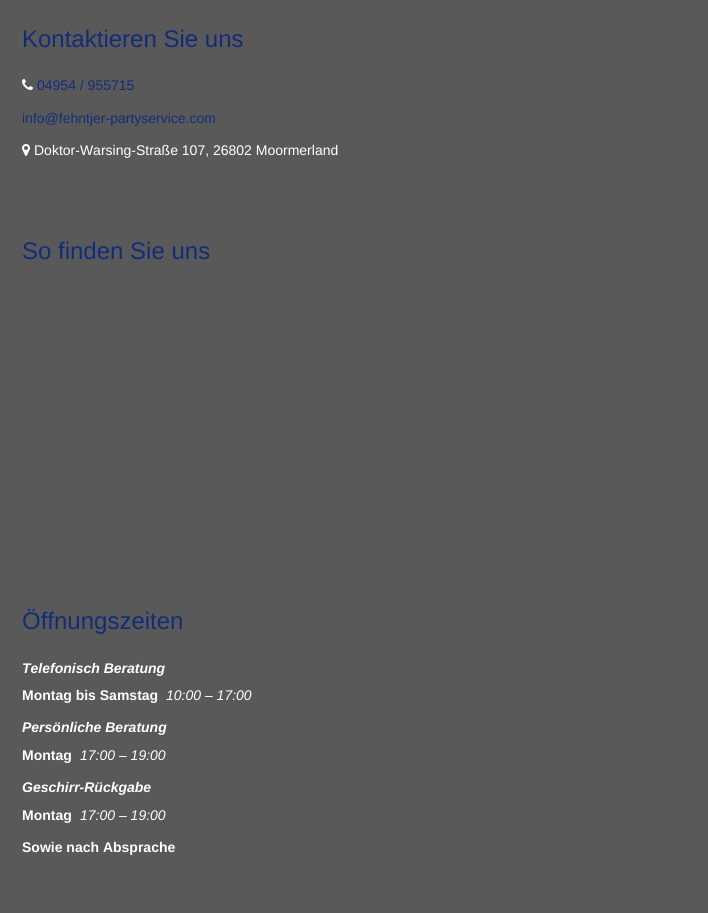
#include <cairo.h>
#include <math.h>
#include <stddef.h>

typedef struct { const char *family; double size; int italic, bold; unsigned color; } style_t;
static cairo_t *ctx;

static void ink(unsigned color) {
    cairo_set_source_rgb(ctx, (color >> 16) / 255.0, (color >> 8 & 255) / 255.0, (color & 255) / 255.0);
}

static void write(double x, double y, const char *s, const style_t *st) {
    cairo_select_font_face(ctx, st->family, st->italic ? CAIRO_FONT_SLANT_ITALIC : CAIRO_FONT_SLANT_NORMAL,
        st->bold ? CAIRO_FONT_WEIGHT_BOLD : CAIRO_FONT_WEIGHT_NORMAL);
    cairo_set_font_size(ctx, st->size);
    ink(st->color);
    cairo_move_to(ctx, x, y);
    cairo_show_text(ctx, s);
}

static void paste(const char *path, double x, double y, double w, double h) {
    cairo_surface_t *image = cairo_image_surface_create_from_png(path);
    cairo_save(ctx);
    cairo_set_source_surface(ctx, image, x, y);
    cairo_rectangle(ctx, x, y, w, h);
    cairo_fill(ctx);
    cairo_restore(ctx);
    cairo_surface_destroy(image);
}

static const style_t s1 = {"Liberation Sans", 24, 0, 0, 0x122c79};
static const style_t s2 = {"Liberation Sans", 14, 0, 0, 0x122c79};
static const style_t s3 = {"Liberation Sans", 14, 0, 0, 0xffffff};
static const style_t s4 = {"Liberation Sans", 14, 1, 1, 0xffffff};
static const style_t s5 = {"Liberation Sans", 14, 0, 1, 0xffffff};
static const style_t s6 = {"Liberation Sans", 14, 1, 0, 0xffffff};

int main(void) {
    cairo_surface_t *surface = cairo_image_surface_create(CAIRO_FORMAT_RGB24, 708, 913);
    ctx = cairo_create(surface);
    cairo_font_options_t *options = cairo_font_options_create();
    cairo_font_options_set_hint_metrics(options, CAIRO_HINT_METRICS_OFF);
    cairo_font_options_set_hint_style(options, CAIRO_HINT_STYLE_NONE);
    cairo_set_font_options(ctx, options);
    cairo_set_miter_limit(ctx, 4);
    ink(0x595959);
    cairo_paint(ctx);
    write(22, 47, "Kontaktieren Sie uns", &s1);
    paste("pic1.png", 22, 79, 11, 11);
    write(37, 90, "04954 / 955715", &s2);
    write(22, 123, "info@fehntjer-partyservice.com", &s2);
    paste("pic2.png", 22, 144, 8, 12);
    write(34, 155, "Doktor-Warsing-Straße 107, 26802 Moormerland", &s3);
    write(22, 259, "So finden Sie uns", &s1);
    write(22, 629, "Öffnungszeiten", &s1);
    write(22, 673, "Telefonisch Beratung", &s4);
    write(22, 700, "Montag bis Samstag", &s5);
    write(166, 700, "10:00 – 17:00", &s6);
    write(22, 732, "Persönliche Beratung", &s4);
    write(22, 760, "Montag", &s5);
    write(80, 760, "17:00 – 19:00", &s6);
    write(22, 792, "Geschirr-Rückgabe", &s4);
    write(22, 820, "Montag", &s5);
    write(80, 820, "17:00 – 19:00", &s6);
    write(22, 852, "Sowie nach Absprache", &s5);
    cairo_surface_write_to_png(surface, "screenshot.png");
    cairo_font_options_destroy(options);
    cairo_destroy(ctx);
    cairo_surface_destroy(surface);
    return 0;
}
